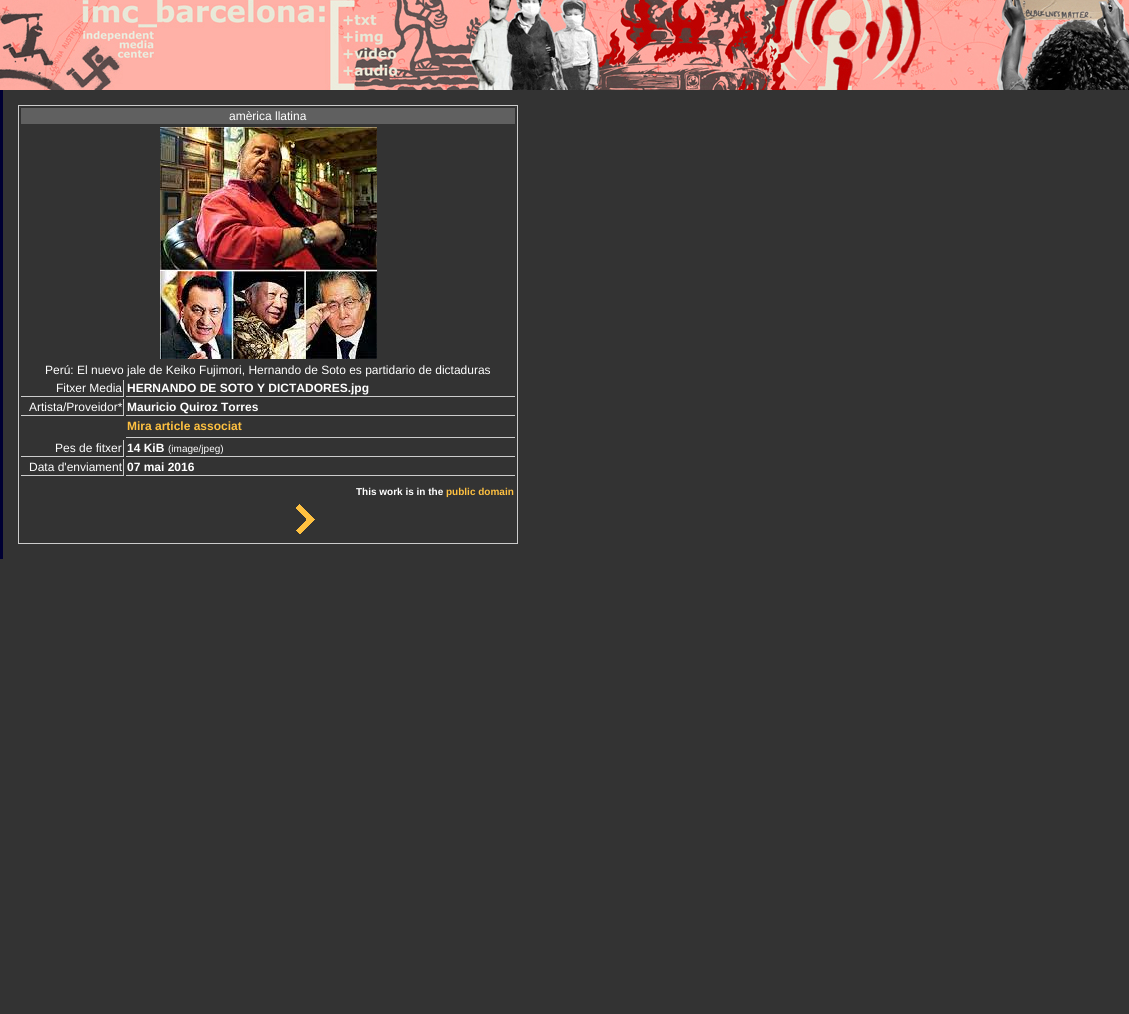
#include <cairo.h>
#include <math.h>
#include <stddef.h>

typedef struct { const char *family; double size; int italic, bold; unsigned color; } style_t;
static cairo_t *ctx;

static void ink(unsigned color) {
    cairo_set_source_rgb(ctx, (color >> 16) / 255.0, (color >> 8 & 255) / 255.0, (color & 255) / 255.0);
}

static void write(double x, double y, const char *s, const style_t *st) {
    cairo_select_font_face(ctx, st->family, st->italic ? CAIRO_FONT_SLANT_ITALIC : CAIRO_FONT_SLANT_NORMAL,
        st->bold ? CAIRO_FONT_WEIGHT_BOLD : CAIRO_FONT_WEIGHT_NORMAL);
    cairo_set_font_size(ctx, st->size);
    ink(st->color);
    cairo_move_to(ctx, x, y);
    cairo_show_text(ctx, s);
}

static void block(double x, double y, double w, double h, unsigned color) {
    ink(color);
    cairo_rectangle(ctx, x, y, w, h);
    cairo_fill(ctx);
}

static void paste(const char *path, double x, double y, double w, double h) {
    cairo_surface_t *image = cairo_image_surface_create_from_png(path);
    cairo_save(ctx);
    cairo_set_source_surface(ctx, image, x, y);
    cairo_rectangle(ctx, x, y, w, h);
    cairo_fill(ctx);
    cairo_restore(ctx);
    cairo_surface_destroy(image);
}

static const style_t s1 = {"Liberation Sans", 12, 0, 0, 0xffffff};
static const style_t s2 = {"Liberation Sans", 12, 0, 1, 0xffffff};
static const style_t s3 = {"Liberation Sans", 12, 0, 1, 0xffc140};
static const style_t s4 = {"Liberation Sans", 10, 0, 0, 0xffffff};
static const style_t s5 = {"Liberation Sans", 10, 0, 1, 0xffffff};
static const style_t s6 = {"Liberation Sans", 10, 0, 1, 0xffc140};

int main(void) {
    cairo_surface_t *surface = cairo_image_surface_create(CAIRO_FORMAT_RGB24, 1129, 1014);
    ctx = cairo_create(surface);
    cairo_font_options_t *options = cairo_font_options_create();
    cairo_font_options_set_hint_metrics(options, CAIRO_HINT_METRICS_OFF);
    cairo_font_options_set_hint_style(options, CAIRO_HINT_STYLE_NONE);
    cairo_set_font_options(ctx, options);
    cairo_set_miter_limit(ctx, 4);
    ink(0x333333);
    cairo_paint(ctx);
    paste("pic1.png", 0, 0, 157, 90);
    paste("pic2.png", 157, 0, 972, 90);
    block(0, 90, 3, 469, 0x000033);
    cairo_rectangle(ctx, 18.5, 105.5, 499, 438);
    ink(0xcccccc);
    cairo_set_line_width(ctx, 1);
    cairo_stroke(ctx);
    block(21, 108, 494, 16, 0x606060);
    write(229, 120, "amèrica llatina", &s1);
    paste("pic3.png", 160, 127, 217, 232);
    write(45, 374, "Perú: El nuevo jale de Keiko Fujimori, Hernando de Soto es partidario de dictaduras", &s1);
    block(123, 380, 1, 17, 0xcccccc);
    block(21, 396, 103, 1, 0xcccccc);
    write(56, 392, "Fitxer Media", &s1);
    block(126, 396, 389, 1, 0xcccccc);
    write(127, 392, "HERNANDO DE SOTO Y DICTADORES.jpg", &s2);
    block(123, 399, 1, 17, 0xcccccc);
    block(21, 415, 103, 1, 0xcccccc);
    write(29, 411, "Artista/Proveidor*", &s1);
    block(126, 415, 389, 1, 0xcccccc);
    write(127, 411, "Mauricio Quiroz Torres", &s2);
    block(126, 437, 389, 1, 0xcccccc);
    write(127, 430, "Mira article associat", &s3);
    block(123, 440, 1, 17, 0xcccccc);
    block(21, 456, 103, 1, 0xcccccc);
    write(55, 452, "Pes de fitxer", &s1);
    block(126, 456, 389, 1, 0xcccccc);
    write(127, 452, "14 KiB", &s2);
    write(168, 452, "(image/jpeg)", &s4);
    block(123, 459, 1, 17, 0xcccccc);
    block(21, 475, 103, 1, 0xcccccc);
    write(29, 471, "Data d'enviament", &s1);
    block(126, 475, 389, 1, 0xcccccc);
    write(127, 471, "07 mai 2016", &s2);
    write(356, 495, "This work is in the", &s5);
    write(446, 495, "public domain", &s6);
    paste("pic4.png", 296, 504, 19, 30);
    cairo_surface_write_to_png(surface, "screenshot.png");
    cairo_font_options_destroy(options);
    cairo_destroy(ctx);
    cairo_surface_destroy(surface);
    return 0;
}
